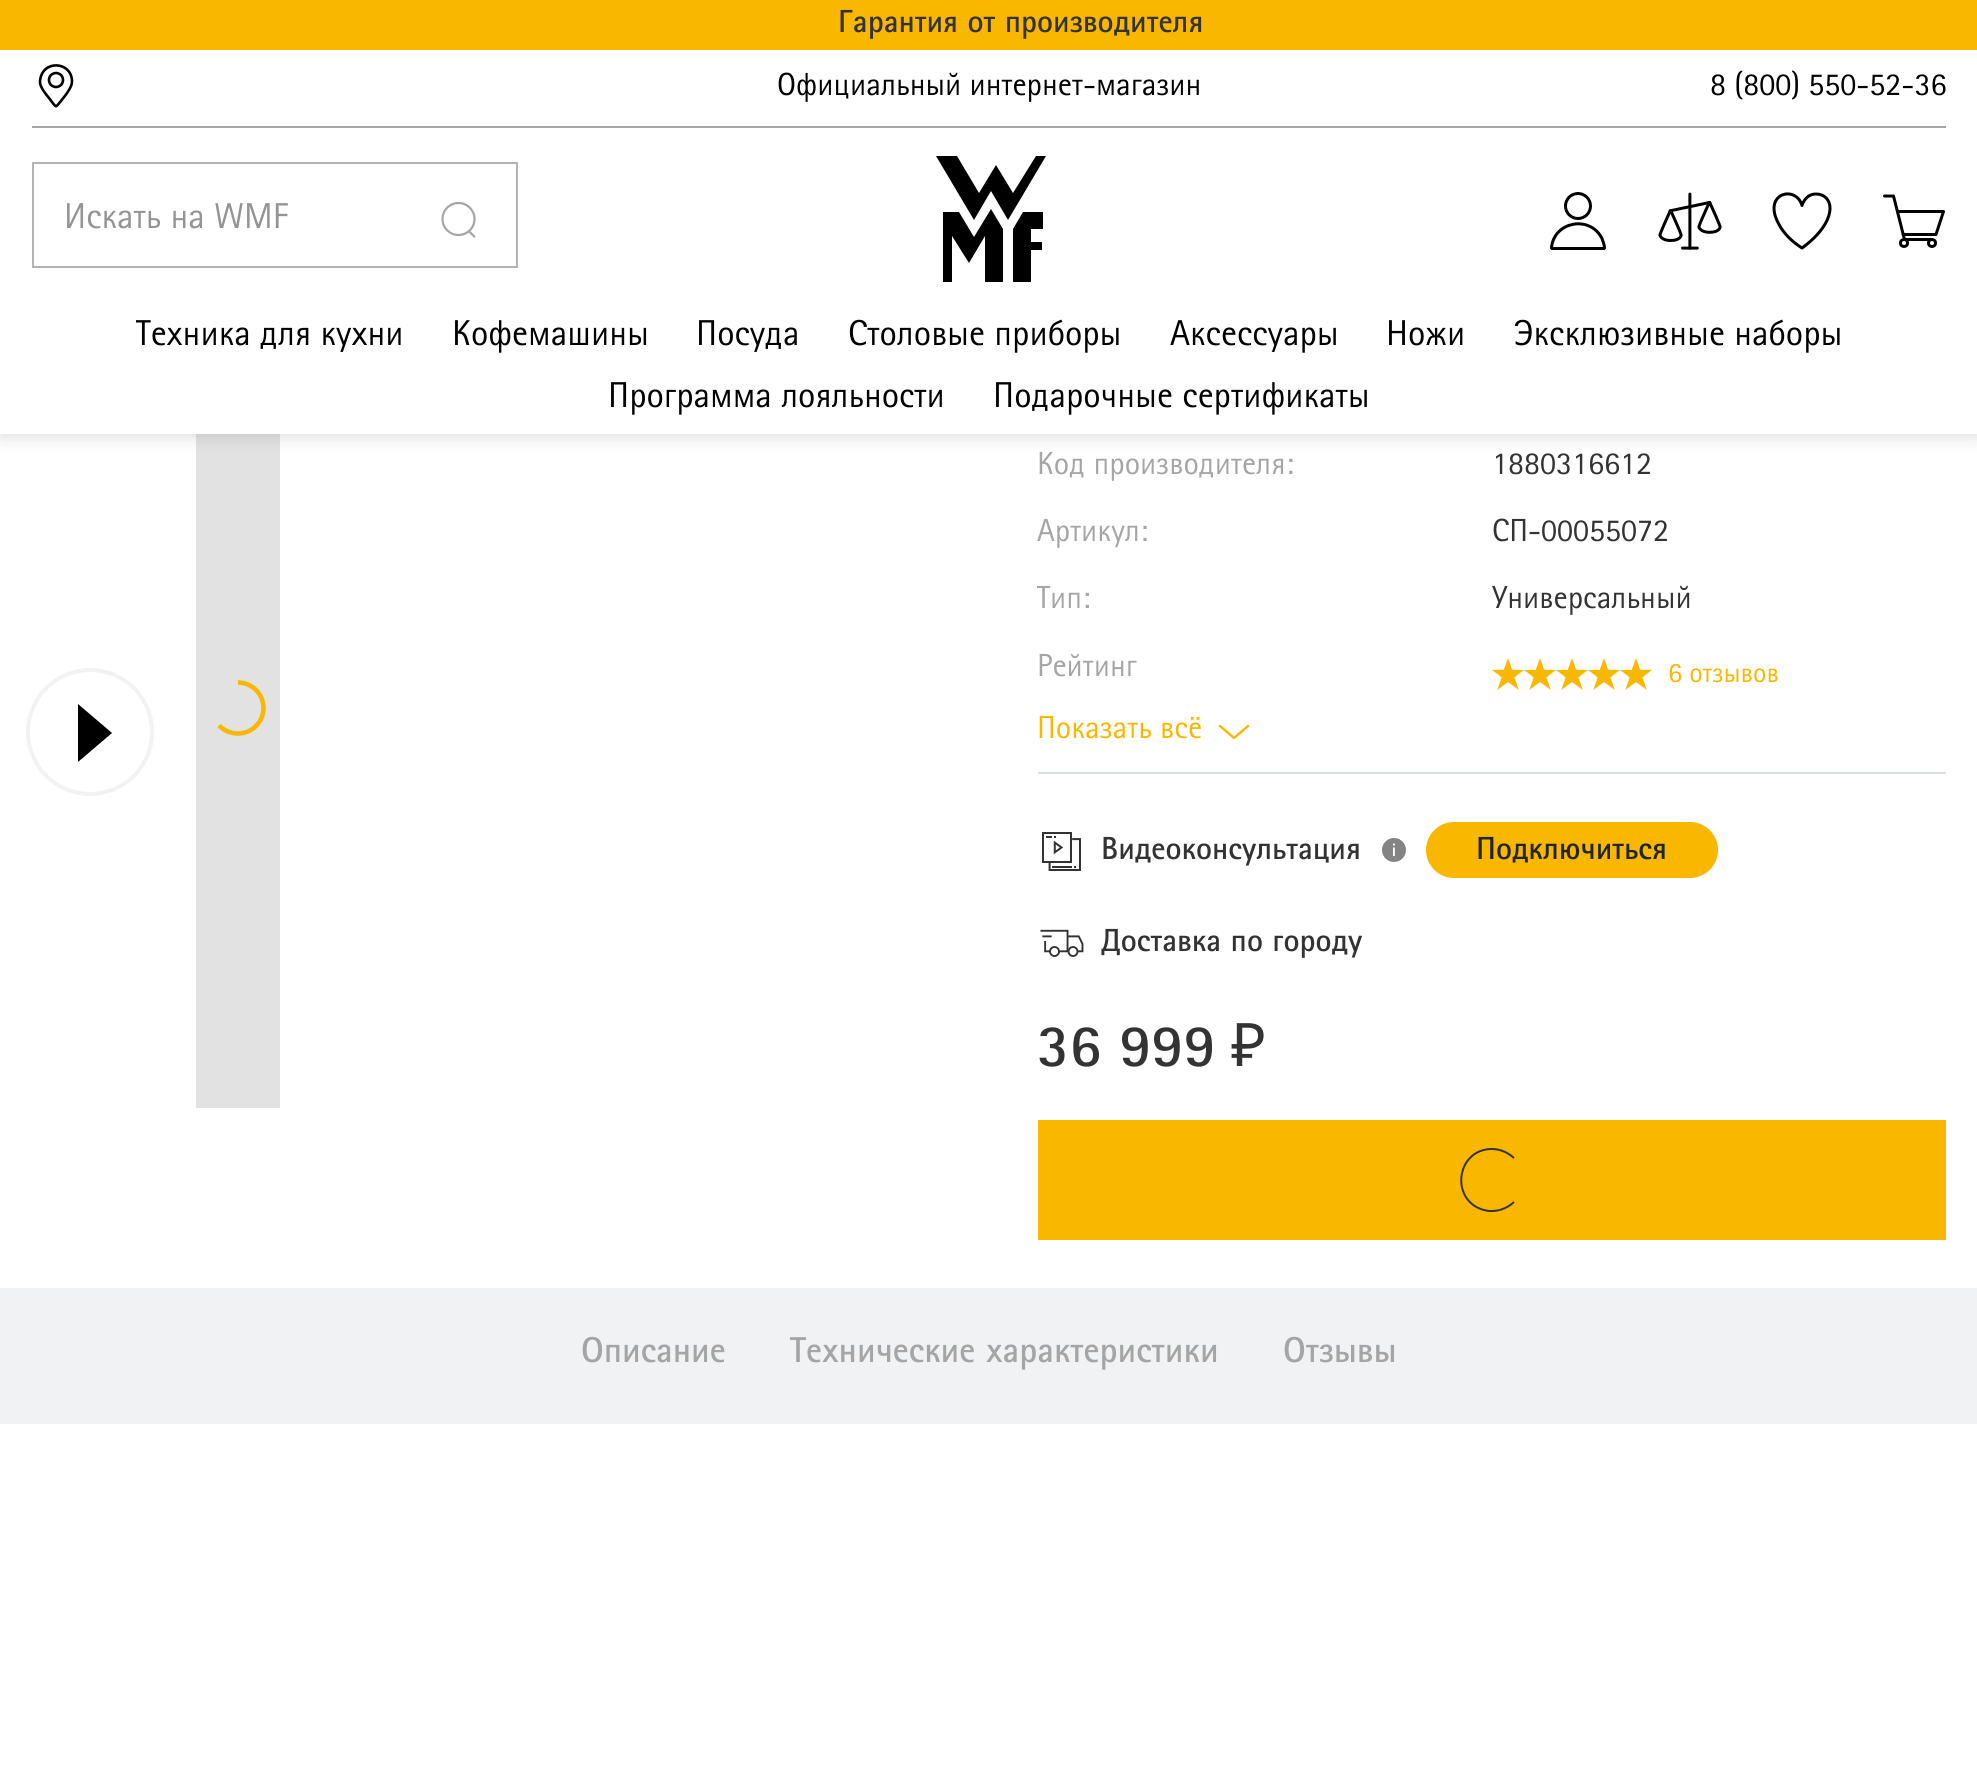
#include <cairo.h>
#include <math.h>
#include <stddef.h>

typedef struct { const char *family; double size; int italic, bold; unsigned color; } style_t;
static cairo_t *ctx;

static void ink(unsigned color) {
    cairo_set_source_rgb(ctx, (color >> 16) / 255.0, (color >> 8 & 255) / 255.0, (color & 255) / 255.0);
}

static void write(double x, double y, const char *s, const style_t *st) {
    cairo_select_font_face(ctx, st->family, st->italic ? CAIRO_FONT_SLANT_ITALIC : CAIRO_FONT_SLANT_NORMAL,
        st->bold ? CAIRO_FONT_WEIGHT_BOLD : CAIRO_FONT_WEIGHT_NORMAL);
    cairo_set_font_size(ctx, st->size);
    ink(st->color);
    cairo_move_to(ctx, x, y);
    cairo_show_text(ctx, s);
}

static void block(double x, double y, double w, double h, unsigned color) {
    ink(color);
    cairo_rectangle(ctx, x, y, w, h);
    cairo_fill(ctx);
}

static void round_path(double x, double y, double w, double h, double r) {
    cairo_new_sub_path(ctx);
    cairo_arc(ctx, x + w - r, y + h - r, r, 0, M_PI / 2);
    cairo_arc(ctx, x + r, y + h - r, r, M_PI / 2, M_PI);
    cairo_arc(ctx, x + r, y + r, r, M_PI, 1.5 * M_PI);
    cairo_arc(ctx, x + w - r, y + r, r, 1.5 * M_PI, 2 * M_PI);
    cairo_close_path(ctx);
}

static void blur_box(double x, double y, double w, double h, double r, double blur, double alpha) {
    cairo_push_group_with_content(ctx, CAIRO_CONTENT_ALPHA);
    cairo_set_operator(ctx, CAIRO_OPERATOR_SOURCE);
    for (int i = 15; i >= -15 && fmin(w, h) + blur * i / 3 > 0; i -= 2) {
        double e = blur * i / 6;
        cairo_set_source_rgba(ctx, 0, 0, 0, alpha * erfc((i - 1) / 8.5) / 2);
        round_path(x - e, y - e, w + 2 * e, h + 2 * e, fmax(0, fmin(r + e + blur * .6, fmin(w, h) / 2 + e)));
        cairo_fill(ctx);
    }
    cairo_pattern_t *soft = cairo_pop_group(ctx);
    cairo_mask(ctx, soft);
    cairo_pattern_destroy(soft);
}

static void paste(const char *path, double x, double y, double w, double h) {
    cairo_surface_t *image = cairo_image_surface_create_from_png(path);
    cairo_save(ctx);
    cairo_set_source_surface(ctx, image, x, y);
    cairo_rectangle(ctx, x, y, w, h);
    cairo_fill(ctx);
    cairo_restore(ctx);
    cairo_surface_destroy(image);
}

static const style_t s1 = {"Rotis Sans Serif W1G", 32, 0, 1, 0x333333};
static const style_t s2 = {"Rotis Sans Serif W1G", 32, 0, 0, 0x000000};
static const style_t s3 = {"Rotis Sans Serif W1G", 36, 0, 0, 0x949494};
static const style_t s4 = {"Rotis Sans Serif W1G", 36, 0, 0, 0x000000};
static const style_t s5 = {"Rotis Sans Serif W1G", 32, 0, 0, 0xa5a5a5};
static const style_t s6 = {"Rotis Sans Serif W1G", 32, 0, 0, 0x333333};
static const style_t s7 = {"Rotis Sans Serif W1G", 28, 0, 0, 0xf9b700};
static const style_t s8 = {"Rotis Sans Serif W1G", 32, 0, 0, 0xf9b700};
static const style_t s9 = {"Rotis Sans Serif W1G", 32, 0, 1, 0x212529};
static const style_t s10 = {"Rotis Sans Serif W1G", 60, 0, 1, 0x333333};
static const style_t s11 = {"Noto Sans", 60, 0, 0, 0x333333};
static const style_t s12 = {"Rotis Sans Serif W1G", 36, 0, 1, 0xa5a5a5};

int main(void) {
    cairo_surface_t *surface = cairo_image_surface_create(CAIRO_FORMAT_RGB24, 1977, 1789);
    ctx = cairo_create(surface);
    cairo_font_options_t *options = cairo_font_options_create();
    cairo_font_options_set_hint_metrics(options, CAIRO_HINT_METRICS_OFF);
    cairo_font_options_set_hint_style(options, CAIRO_HINT_STYLE_NONE);
    cairo_set_font_options(ctx, options);
    cairo_set_miter_limit(ctx, 4);
    ink(0xffffff);
    cairo_paint(ctx);
    block(196, 434, 84, 674, 0xe2e2e2);
    ink(0x636363);
    blur_box(0, 4, 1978, 434, 0, 8, 0.2);
    block(0, 50, 1977, 384, 0xffffff);
    block(0, 0, 1977, 50, 0xf9b700);
    write(838, 32, "Гарантия от производителя", &s1);
    block(32, 126, 1914, 2, 0xa5a5a5);
    cairo_new_path(ctx);
    cairo_arc(ctx, 56, 80, 7, 0, 2 * M_PI);
    ink(0x000000);
    cairo_set_line_width(ctx, 2.6);
    cairo_stroke(ctx);
    cairo_new_path(ctx);
    cairo_move_to(ctx, 72, 81.5);
    cairo_curve_to(ctx, 72, 86.5, 67.5, 92.5, 64.5, 96.5);
    cairo_line_to(ctx, 58.5, 104);
    cairo_curve_to(ctx, 55.5, 107, 56.5, 107, 53.5, 104);
    cairo_line_to(ctx, 49, 98);
    cairo_curve_to(ctx, 46, 94.5, 39.5, 86.5, 40, 81.5);
    cairo_curve_to(ctx, 41.5, 59, 72, 61, 72, 81.5);
    cairo_close_path(ctx);
    cairo_set_line_join(ctx, CAIRO_LINE_JOIN_ROUND);
    cairo_stroke(ctx);
    write(777, 95, "Официальный интернет-магазин", &s2);
    write(1710, 95, "8 (800) 550-52-36", &s2);
    paste("pic1.png", 441, 201, 35, 37);
    cairo_rectangle(ctx, 33, 163, 484, 104);
    ink(0xb3b3b3);
    cairo_set_line_width(ctx, 2);
    cairo_set_line_join(ctx, CAIRO_LINE_JOIN_MITER);
    cairo_stroke(ctx);
    write(64, 228, "Искать на WMF", &s3);
    ink(0x000000);
    cairo_new_path(ctx);
    cairo_move_to(ctx, 1031, 242);
    cairo_line_to(ctx, 1042, 242);
    cairo_line_to(ctx, 1042, 250);
    cairo_line_to(ctx, 1031, 250);
    cairo_line_to(ctx, 1031, 282);
    cairo_line_to(ctx, 1013, 282);
    cairo_line_to(ctx, 1013, 229);
    cairo_line_to(ctx, 1023, 212);
    cairo_line_to(ctx, 1043, 212);
    cairo_line_to(ctx, 1043, 229);
    cairo_line_to(ctx, 1031, 229);
    cairo_close_path(ctx);
    cairo_move_to(ctx, 957, 156);
    cairo_line_to(ctx, 979, 193);
    cairo_line_to(ctx, 996, 165);
    cairo_line_to(ctx, 1013, 193);
    cairo_line_to(ctx, 1036, 156);
    cairo_line_to(ctx, 1046, 156);
    cairo_line_to(ctx, 1008, 220);
    cairo_line_to(ctx, 991, 191);
    cairo_line_to(ctx, 974, 220);
    cairo_line_to(ctx, 936, 156);
    cairo_close_path(ctx);
    cairo_move_to(ctx, 952, 236);
    cairo_line_to(ctx, 952, 282);
    cairo_line_to(ctx, 943, 282);
    cairo_line_to(ctx, 943, 212);
    cairo_line_to(ctx, 959, 212);
    cairo_line_to(ctx, 974, 237);
    cairo_line_to(ctx, 991, 209);
    cairo_line_to(ctx, 1003, 229);
    cairo_line_to(ctx, 1003, 282);
    cairo_line_to(ctx, 985, 282);
    cairo_line_to(ctx, 985, 236);
    cairo_line_to(ctx, 969, 263);
    cairo_close_path(ctx);
    cairo_fill(ctx);
    cairo_arc(ctx, 1578, 206, 12.5, 0, 2 * M_PI);
    cairo_set_line_width(ctx, 3);
    cairo_stroke(ctx);
    cairo_new_path(ctx);
    cairo_move_to(ctx, 1551.5, 248);
    cairo_curve_to(ctx, 1553.5, 221.5, 1590, 214.5, 1602, 238.5);
    cairo_curve_to(ctx, 1603, 241, 1604.5, 245.5, 1604.5, 248);
    cairo_line_to(ctx, 1604, 248.5);
    cairo_line_to(ctx, 1552, 248.5);
    cairo_close_path(ctx);
    cairo_set_line_join(ctx, CAIRO_LINE_JOIN_ROUND);
    cairo_stroke(ctx);
    paste("pic2.png", 1658, 192, 64, 58);
    cairo_new_path(ctx);
    cairo_move_to(ctx, 1816, 194);
    cairo_curve_to(ctx, 1805, 194, 1802, 205.5, 1802, 205.5);
    cairo_curve_to(ctx, 1796, 184.5, 1762, 193, 1778.5, 223.5);
    cairo_curve_to(ctx, 1783.5, 233.5, 1792.5, 242, 1802, 248);
    cairo_curve_to(ctx, 1802, 248, 1830, 229, 1830, 208);
    cairo_curve_to(ctx, 1830, 200, 1824.5, 194, 1816, 194);
    cairo_close_path(ctx);
    cairo_stroke(ctx);
    cairo_new_path(ctx);
    cairo_move_to(ctx, 1884.5, 196);
    cairo_line_to(ctx, 1893.5, 196);
    cairo_line_to(ctx, 1904.5, 239.5);
    cairo_line_to(ctx, 1932, 239.5);
    cairo_move_to(ctx, 1897.5, 211.5);
    cairo_line_to(ctx, 1943.5, 211.5);
    cairo_line_to(ctx, 1936, 234.5);
    cairo_line_to(ctx, 1903, 234.5);
    cairo_set_line_cap(ctx, CAIRO_LINE_CAP_ROUND);
    cairo_stroke(ctx);
    cairo_arc(ctx, 1904, 243, 3.5, 0, 2 * M_PI);
    cairo_set_line_cap(ctx, CAIRO_LINE_CAP_BUTT);
    cairo_set_line_join(ctx, CAIRO_LINE_JOIN_MITER);
    cairo_stroke(ctx);
    cairo_arc(ctx, 1932, 243, 3.5, 0, 2 * M_PI);
    cairo_stroke(ctx);
    write(136, 345, "Техника для кухни", &s4);
    write(452, 345, "Кофемашины", &s4);
    write(696, 345, "Посуда", &s4);
    write(848, 345, "Столовые приборы", &s4);
    write(1170, 345, "Аксессуары", &s4);
    write(1386, 345, "Ножи", &s4);
    write(1514, 345, "Эксклюзивные наборы", &s4);
    write(608, 407, "Программа лояльности", &s4);
    write(993, 407, "Подарочные сертификаты", &s4);
    cairo_new_path(ctx);
    cairo_arc(ctx, 90, 732, 62, 0, 2 * M_PI);
    ink(0xf2f2f2);
    cairo_set_line_width(ctx, 4);
    cairo_stroke(ctx);
    ink(0x000000);
    cairo_new_path(ctx);
    cairo_move_to(ctx, 112, 733);
    cairo_line_to(ctx, 78, 762);
    cairo_line_to(ctx, 78, 704);
    cairo_close_path(ctx);
    cairo_fill(ctx);
    cairo_new_path(ctx);
    cairo_move_to(ctx, 238, 682.5);
    cairo_curve_to(ctx, 252, 682.5, 263.5, 694, 263.5, 708);
    cairo_curve_to(ctx, 263.5, 722, 252, 733.5, 238, 733.5);
    cairo_curve_to(ctx, 230.5, 733.5, 224, 730.5, 219, 725.5);
    ink(0xf9b700);
    cairo_set_line_width(ctx, 4.6);
    cairo_stroke(ctx);
    write(1037, 474, "Код производителя:", &s5);
    write(1492, 474, "1880316612", &s6);
    write(1037, 541, "Артикул:", &s5);
    write(1492, 541, "СП-00055072", &s6);
    write(1037, 608, "Тип:", &s5);
    write(1492, 608, "Универсальный", &s6);
    write(1037, 676, "Рейтинг", &s5);
    paste("pic3.png", 1492, 658, 32, 32);
    paste("pic3.png", 1524, 658, 32, 32);
    paste("pic3.png", 1556, 658, 32, 32);
    paste("pic3.png", 1588, 658, 32, 32);
    paste("pic3.png", 1620, 658, 32, 32);
    write(1668, 682, "6 отзывов", &s7);
    write(1037, 738, "Показать всё", &s8);
    cairo_new_path(ctx);
    cairo_move_to(ctx, 1248, 726);
    cairo_line_to(ctx, 1234, 738);
    cairo_line_to(ctx, 1220, 726);
    cairo_set_line_width(ctx, 2.4);
    cairo_set_line_cap(ctx, CAIRO_LINE_CAP_ROUND);
    cairo_set_line_join(ctx, CAIRO_LINE_JOIN_ROUND);
    cairo_stroke(ctx);
    block(1038, 772, 908, 2, 0xdbdfe0);
    paste("pic4.png", 1042, 832, 39, 39);
    write(1101, 859, "Видеоконсультация", &s1);
    paste("pic5.png", 1382, 838, 24, 24);
    ink(0xf9b700);
    round_path(1426, 822, 292, 56, 28);
    cairo_fill(ctx);
    write(1476, 859, "Подключиться", &s9);
    paste("pic6.png", 1040, 929, 44, 28);
    write(1101, 951, "Доставка по городу", &s1);
    write(1037, 1066, "36 999", &s10);
    write(1231, 1066, "₽", &s11);
    block(1038, 1120, 908, 120, 0xf9b700);
    cairo_new_path(ctx);
    cairo_move_to(ctx, 1514, 1202);
    cairo_curve_to(ctx, 1506.5, 1209, 1496, 1212.5, 1486, 1210.5);
    cairo_curve_to(ctx, 1449.5, 1203, 1455, 1149, 1492, 1149);
    cairo_curve_to(ctx, 1500, 1149, 1508, 1152.5, 1514, 1158);
    ink(0x333333);
    cairo_set_line_width(ctx, 2);
    cairo_set_line_cap(ctx, CAIRO_LINE_CAP_BUTT);
    cairo_set_line_join(ctx, CAIRO_LINE_JOIN_MITER);
    cairo_stroke(ctx);
    block(0, 1288, 1977, 136, 0xf1f2f3);
    write(581, 1362, "Описание", &s12);
    write(790, 1362, "Технические характеристики", &s12);
    write(1283, 1362, "Отзывы", &s12);
    cairo_surface_write_to_png(surface, "screenshot.png");
    cairo_font_options_destroy(options);
    cairo_destroy(ctx);
    cairo_surface_destroy(surface);
    return 0;
}
